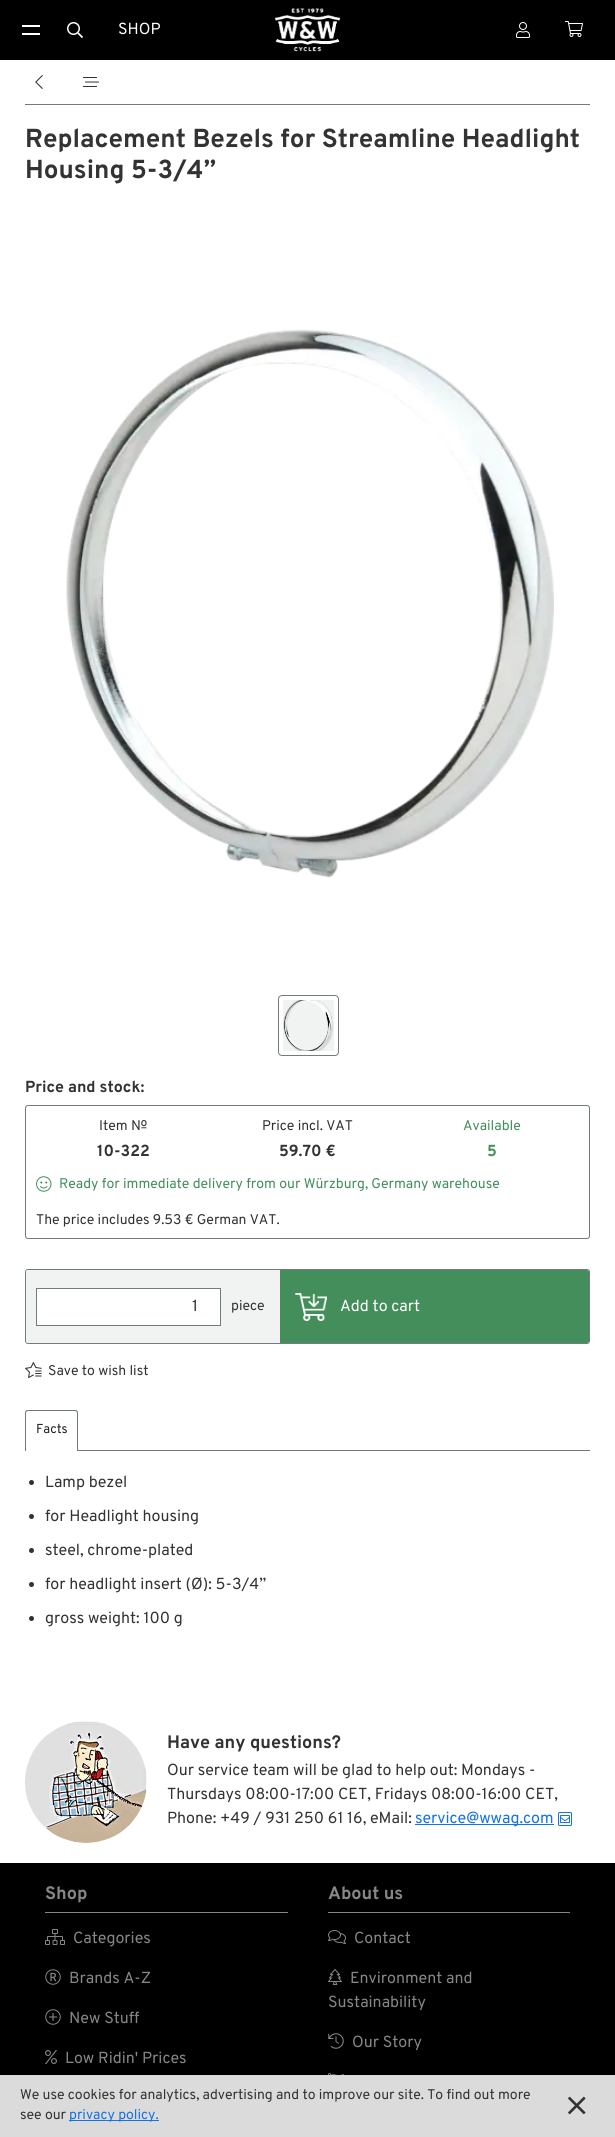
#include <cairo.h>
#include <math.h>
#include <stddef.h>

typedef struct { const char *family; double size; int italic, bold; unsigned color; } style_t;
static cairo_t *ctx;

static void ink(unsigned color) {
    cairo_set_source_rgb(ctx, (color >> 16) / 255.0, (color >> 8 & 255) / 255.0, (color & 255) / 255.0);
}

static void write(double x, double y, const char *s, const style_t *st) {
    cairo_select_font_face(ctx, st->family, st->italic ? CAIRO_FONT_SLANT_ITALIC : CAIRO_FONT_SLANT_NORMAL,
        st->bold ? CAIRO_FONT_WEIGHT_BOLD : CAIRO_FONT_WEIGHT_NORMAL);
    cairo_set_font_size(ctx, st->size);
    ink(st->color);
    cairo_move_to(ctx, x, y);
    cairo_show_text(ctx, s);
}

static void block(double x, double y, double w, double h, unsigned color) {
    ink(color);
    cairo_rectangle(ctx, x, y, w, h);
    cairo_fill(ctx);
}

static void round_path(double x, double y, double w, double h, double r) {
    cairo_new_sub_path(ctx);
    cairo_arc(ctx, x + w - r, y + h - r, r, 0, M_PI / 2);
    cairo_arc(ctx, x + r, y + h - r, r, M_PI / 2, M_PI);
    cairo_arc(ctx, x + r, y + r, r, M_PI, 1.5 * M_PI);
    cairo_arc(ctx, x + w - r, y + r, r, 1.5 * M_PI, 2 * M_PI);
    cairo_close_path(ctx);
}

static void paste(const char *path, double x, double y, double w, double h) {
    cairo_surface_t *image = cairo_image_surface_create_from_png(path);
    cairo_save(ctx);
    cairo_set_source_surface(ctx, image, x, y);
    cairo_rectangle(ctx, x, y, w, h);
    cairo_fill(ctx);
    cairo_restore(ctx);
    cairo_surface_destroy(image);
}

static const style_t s1 = {"Overpass", 16, 0, 0, 0xffffff};
static const style_t s2 = {"Overpass", 26, 0, 1, 0x333333};
static const style_t s3 = {"Overpass", 16, 0, 1, 0x333333};
static const style_t s4 = {"Overpass", 14, 0, 0, 0x333333};
static const style_t s5 = {"Overpass", 14, 0, 0, 0x448e5b};
static const style_t s6 = {"Overpass", 16, 0, 1, 0x448e5b};
static const style_t s7 = {"Overpass", 16, 0, 0, 0x333333};
static const style_t s8 = {"Overpass", 13, 0, 0, 0x222222};
static const style_t s9 = {"Overpass", 18, 0, 1, 0x333333};
static const style_t s10 = {"Overpass", 16, 0, 0, 0x1473e6};
static const style_t s11 = {"Overpass", 18, 0, 1, 0x868686};
static const style_t s12 = {"Overpass", 16, 0, 0, 0x868686};
static const style_t s13 = {"Overpass", 14, 0, 0, 0x1473e6};

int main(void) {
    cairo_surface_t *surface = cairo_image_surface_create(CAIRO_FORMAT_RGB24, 615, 2137);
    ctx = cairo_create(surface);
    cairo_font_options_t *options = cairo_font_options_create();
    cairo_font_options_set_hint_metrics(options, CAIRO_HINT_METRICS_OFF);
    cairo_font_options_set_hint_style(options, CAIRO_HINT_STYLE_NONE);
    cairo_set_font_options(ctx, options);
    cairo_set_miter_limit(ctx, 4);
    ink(0x000000);
    cairo_paint(ctx);
    block(22, 25, 18, 2, 0xffffff);
    block(22, 33, 18, 2, 0xffffff);
    paste("pic1.png", 67, 22, 16, 16);
    write(118, 34, "SHOP", &s1);
    paste("pic2.png", 274, 8, 67, 44);
    paste("pic3.png", 516, 22, 14, 16);
    paste("pic4.png", 565, 21, 18, 16);
    block(0, 60, 615, 1803, 0xffffff);
    block(25, 104, 565, 1, 0x727b81);
    paste("pic5.png", 35, 75, 8, 14);
    paste("pic6.png", 83, 77, 16, 10);
    write(25, 147, "Replacement Bezels for Streamline Headlight", &s2);
    write(25, 178, "Housing 5-3/4”", &s2);
    paste("pic7.png", 66, 329, 488, 549);
    round_path(278.5, 995.5, 60, 60, 3.5);
    ink(0x727b81);
    cairo_set_line_width(ctx, 1);
    cairo_stroke(ctx);
    block(283, 1000, 51, 51, 0xf1f2f2);
    paste("pic8.png", 283, 1000, 51, 51);
    write(25, 1092, "Price and stock:", &s3);
    round_path(25.5, 1105.5, 564, 133, 2.5);
    ink(0x727b81);
    cairo_stroke(ctx);
    write(99, 1130, "Item №", &s4);
    write(97, 1156, "10-322", &s3);
    write(262, 1130, "Price incl. VAT", &s4);
    write(279, 1156, "59.70 €", &s3);
    write(463, 1130, "Available", &s5);
    write(487, 1156, "5", &s6);
    paste("pic9.png", 36, 1176, 16, 16);
    write(59, 1188, "Ready for immediate delivery from our Würzburg, Germany warehouse", &s5);
    write(36, 1224, "The price includes 9.53 € German VAT.", &s4);
    round_path(25.5, 1269.5, 564, 74, 2.5);
    ink(0x727b81);
    cairo_stroke(ctx);
    ink(0xf1f2f2);
    cairo_new_path(ctx);
    cairo_move_to(ctx, 28, 1270);
    cairo_line_to(ctx, 280, 1270);
    cairo_line_to(ctx, 280, 1343);
    cairo_line_to(ctx, 28, 1343);
    cairo_curve_to(ctx, 27, 1343, 26, 1342, 26, 1341);
    cairo_line_to(ctx, 26, 1272);
    cairo_curve_to(ctx, 26, 1271, 27, 1270, 28, 1270);
    cairo_close_path(ctx);
    cairo_fill(ctx);
    ink(0xffffff);
    cairo_rectangle(ctx, 36.5, 1288.5, 184, 37);
    cairo_fill_preserve(ctx);
    ink(0x727b81);
    cairo_stroke(ctx);
    write(192, 1311, "1", &s7);
    write(231, 1310, "piece", &s4);
    ink(0x448e5b);
    cairo_new_path(ctx);
    cairo_move_to(ctx, 280, 1270);
    cairo_line_to(ctx, 587, 1270);
    cairo_curve_to(ctx, 588, 1270, 589, 1271, 589, 1272);
    cairo_line_to(ctx, 589, 1341);
    cairo_curve_to(ctx, 589, 1342, 588, 1343, 587, 1343);
    cairo_line_to(ctx, 280, 1343);
    cairo_close_path(ctx);
    cairo_fill(ctx);
    paste("pic10.png", 295, 1293, 32, 28);
    write(340, 1311, "Add to cart", &s1);
    paste("pic11.png", 25, 1362, 17, 16);
    write(48, 1375, "Save to wish list", &s4);
    block(78, 1450, 512, 1, 0x727b81);
    cairo_set_fill_rule(ctx, CAIRO_FILL_RULE_EVEN_ODD);
    cairo_new_path(ctx);
    cairo_move_to(ctx, 28, 1410);
    cairo_line_to(ctx, 75, 1410);
    cairo_curve_to(ctx, 77, 1410, 78, 1411, 78, 1413);
    cairo_line_to(ctx, 78, 1451);
    cairo_line_to(ctx, 25, 1451);
    cairo_line_to(ctx, 25, 1413);
    cairo_curve_to(ctx, 25, 1411, 26, 1410, 28, 1410);
    cairo_close_path(ctx);
    cairo_move_to(ctx, 28, 1411);
    cairo_line_to(ctx, 75, 1411);
    cairo_curve_to(ctx, 76, 1411, 77, 1412, 77, 1413);
    cairo_line_to(ctx, 77, 1451);
    cairo_line_to(ctx, 26, 1451);
    cairo_line_to(ctx, 26, 1413);
    cairo_curve_to(ctx, 26, 1412, 27, 1411, 28, 1411);
    cairo_close_path(ctx);
    cairo_fill(ctx);
    write(36, 1433, "Facts", &s8);
    ink(0x333333);
    cairo_new_path(ctx);
    cairo_arc(ctx, 31.5, 1482.5, 2.5, 0, 2 * M_PI);
    cairo_fill(ctx);
    write(45, 1487, "Lamp bezel", &s7);
    cairo_new_path(ctx);
    cairo_arc(ctx, 31.5, 1516.5, 2.5, 0, 2 * M_PI);
    cairo_fill(ctx);
    write(45, 1521, "for Headlight housing", &s7);
    cairo_new_path(ctx);
    cairo_arc(ctx, 31.5, 1550.5, 2.5, 0, 2 * M_PI);
    cairo_fill(ctx);
    write(45, 1555, "steel, chrome-plated", &s7);
    cairo_new_path(ctx);
    cairo_arc(ctx, 31.5, 1584.5, 2.5, 0, 2 * M_PI);
    cairo_fill(ctx);
    write(45, 1589, "for headlight insert (Ø): 5-3/4”", &s7);
    cairo_new_path(ctx);
    cairo_arc(ctx, 31.5, 1618.5, 2.5, 0, 2 * M_PI);
    cairo_fill(ctx);
    write(45, 1623, "gross weight: 100 g", &s7);
    paste("pic12.png", 25, 1721, 122, 122);
    write(167, 1748, "Have any questions?", &s9);
    write(167, 1775, "Our service team will be glad to help out: Mondays -", &s7);
    write(167, 1799, "Thursdays 08:00-17:00 CET, Fridays 08:00-16:00 CET,", &s7);
    write(167, 1823, "Phone: +49 / 931 250 61 16, eMail:", &s7);
    block(415, 1824, 139, 1, 0x1473e6);
    write(415, 1823, "service@wwag.com", &s10);
    paste("pic13.png", 558, 1812, 14, 14);
    block(45, 1912, 243, 1, 0x868686);
    write(45, 1899, "Shop", &s11);
    paste("pic14.png", 45, 1929, 20, 16);
    write(73, 1943, "Categories", &s12);
    paste("pic15.png", 45, 1969, 16, 16);
    write(69, 1983, "Brands A-Z", &s12);
    paste("pic16.png", 45, 2009, 16, 16);
    write(69, 2023, "New Stuff", &s12);
    paste("pic17.png", 45, 2050, 12, 14);
    write(65, 2063, "Low Ridin' Prices", &s12);
    block(328, 1912, 242, 1, 0x868686);
    write(328, 1899, "About us", &s11);
    paste("pic18.png", 328, 1930, 18, 14);
    write(354, 1943, "Contact", &s12);
    paste("pic19.png", 328, 1969, 14, 16);
    write(350, 1983, "Environment and", &s12);
    write(328, 2007, "Sustainability", &s12);
    paste("pic20.png", 328, 2033, 16, 16);
    write(352, 2047, "Our Story", &s12);
    paste("pic21.png", 328, 2073, 16, 2);
    block(0, 2075, 615, 62, 0xdbdbdb);
    write(20, 2099, "We use cookies for analytics, advertising and to improve our site. To find out more", &s4);
    write(20, 2119, "see our", &s4);
    block(69, 2120, 90, 1, 0x1473e6);
    write(69, 2119, "privacy policy.", &s13);
    paste("pic22.png", 568, 2096, 18, 19);
    cairo_surface_write_to_png(surface, "screenshot.png");
    cairo_font_options_destroy(options);
    cairo_destroy(ctx);
    cairo_surface_destroy(surface);
    return 0;
}
